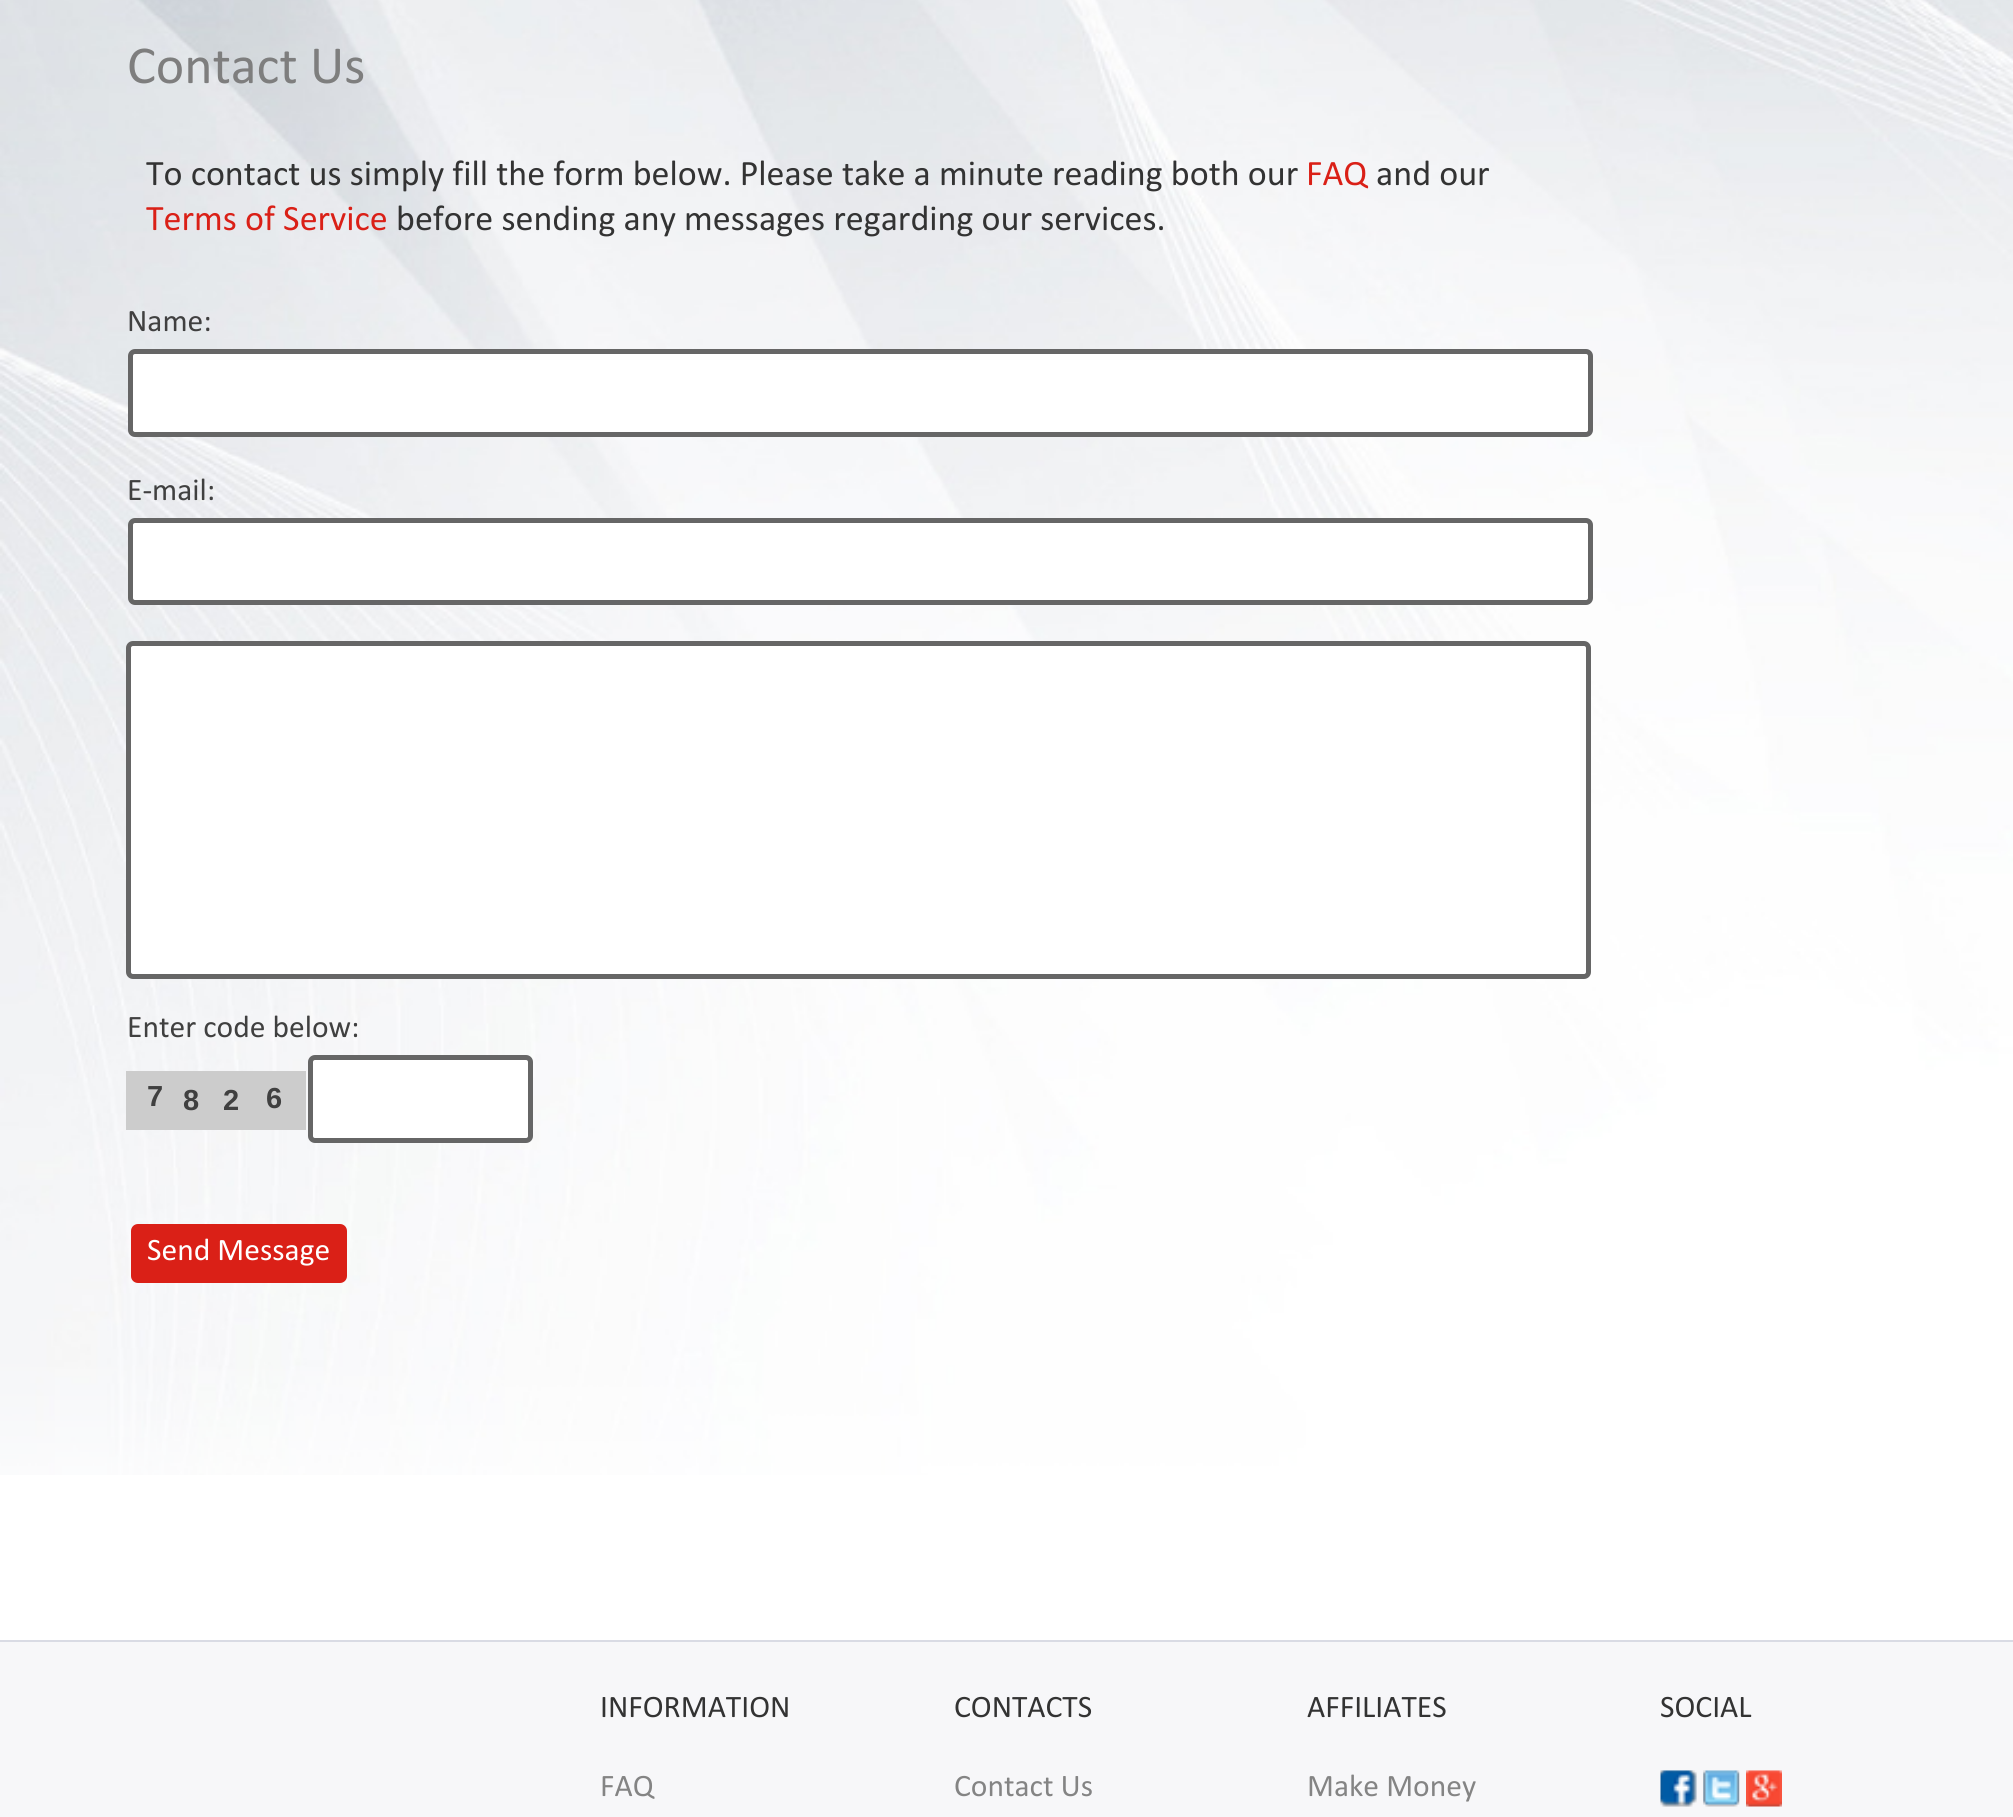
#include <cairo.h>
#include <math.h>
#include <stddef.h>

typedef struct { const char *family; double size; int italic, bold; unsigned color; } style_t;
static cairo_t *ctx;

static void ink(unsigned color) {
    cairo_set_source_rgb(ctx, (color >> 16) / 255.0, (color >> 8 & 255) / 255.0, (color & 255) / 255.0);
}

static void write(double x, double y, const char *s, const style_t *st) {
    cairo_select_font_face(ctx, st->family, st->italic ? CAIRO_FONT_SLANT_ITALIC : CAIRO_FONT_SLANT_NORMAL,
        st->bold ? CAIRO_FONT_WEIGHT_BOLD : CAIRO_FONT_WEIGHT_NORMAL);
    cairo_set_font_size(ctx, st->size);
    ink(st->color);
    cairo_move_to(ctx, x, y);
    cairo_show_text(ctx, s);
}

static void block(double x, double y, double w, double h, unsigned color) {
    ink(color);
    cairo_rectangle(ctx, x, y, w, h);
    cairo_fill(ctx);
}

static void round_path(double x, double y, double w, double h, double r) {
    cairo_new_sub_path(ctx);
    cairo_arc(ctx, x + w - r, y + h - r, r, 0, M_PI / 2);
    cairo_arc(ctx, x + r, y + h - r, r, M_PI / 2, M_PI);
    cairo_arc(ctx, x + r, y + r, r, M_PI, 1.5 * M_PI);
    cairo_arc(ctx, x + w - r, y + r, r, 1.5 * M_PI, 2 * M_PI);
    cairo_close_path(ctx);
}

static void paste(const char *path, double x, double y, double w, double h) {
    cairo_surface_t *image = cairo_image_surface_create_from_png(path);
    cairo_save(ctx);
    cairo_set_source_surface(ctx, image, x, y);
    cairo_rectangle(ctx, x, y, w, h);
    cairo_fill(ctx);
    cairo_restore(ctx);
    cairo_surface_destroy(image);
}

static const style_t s1 = {"Calibri", 54, 0, 0, 0x7e7e7e};
static const style_t s2 = {"Calibri", 36, 0, 0, 0x333333};
static const style_t s3 = {"Calibri", 36, 0, 0, 0xda2017};
static const style_t s4 = {"Calibri", 31.5, 0, 0, 0x404040};
static const style_t s5 = {"Liberation Sans", 29, 0, 1, 0x404040};
static const style_t s6 = {"Calibri", 31.5, 0, 0, 0xffffff};
static const style_t s7 = {"Calibri", 31.5, 0, 0, 0x333333};
static const style_t s8 = {"Calibri", 31.5, 0, 0, 0x848484};

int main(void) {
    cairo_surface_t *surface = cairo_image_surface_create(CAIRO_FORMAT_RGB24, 2013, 1817);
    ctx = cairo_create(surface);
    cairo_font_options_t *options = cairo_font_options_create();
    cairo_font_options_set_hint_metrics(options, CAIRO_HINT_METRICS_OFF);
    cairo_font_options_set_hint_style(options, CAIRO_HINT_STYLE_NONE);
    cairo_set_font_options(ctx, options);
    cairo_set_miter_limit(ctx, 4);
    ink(0xffffff);
    cairo_paint(ctx);
    paste("pic1.png", 0, 0, 2013, 1475);
    write(127, 83, "Contact Us", &s1);
    write(146, 185, "To contact us simply fill the form below. Please take a minute reading both our", &s2);
    write(1306, 185, "FAQ", &s3);
    write(1376, 185, "and our", &s2);
    write(146, 230, "Terms of Service", &s3);
    write(396, 230, "before sending any messages regarding our services.", &s2);
    write(127, 331, "Name:", &s4);
    ink(0xffffff);
    round_path(130.5, 351.5, 1460, 83, 4.5);
    cairo_fill_preserve(ctx);
    ink(0x666666);
    cairo_set_line_width(ctx, 5);
    cairo_stroke(ctx);
    write(127, 500, "E-mail:", &s4);
    ink(0xffffff);
    round_path(130.5, 520.5, 1460, 82, 4.5);
    cairo_fill_preserve(ctx);
    ink(0x666666);
    cairo_stroke(ctx);
    ink(0xffffff);
    round_path(128.5, 643.5, 1460, 333, 4.5);
    cairo_fill_preserve(ctx);
    ink(0x666666);
    cairo_stroke(ctx);
    write(127, 1037, "Enter code below:", &s4);
    block(126, 1071, 180, 59, 0xcccccc);
    write(147, 1106, "7", &s5);
    write(183, 1110, "8", &s5);
    write(223, 1110, "2", &s5);
    write(266, 1108, "6", &s5);
    ink(0xffffff);
    round_path(310.5, 1057.5, 220, 83, 4.5);
    cairo_fill_preserve(ctx);
    ink(0x666666);
    cairo_stroke(ctx);
    ink(0xda2017);
    round_path(131, 1224, 216, 59, 7);
    cairo_fill(ctx);
    write(147, 1260, "Send Message", &s6);
    block(0, 1642, 2013, 175, 0xf7f7f9);
    block(0, 1640, 2013, 2, 0xd9dbe4);
    write(600, 1717, "INFORMATION", &s7);
    write(600, 1796, "FAQ", &s8);
    write(954, 1717, "CONTACTS", &s7);
    write(954, 1796, "Contact Us", &s8);
    write(1307, 1717, "AFFILIATES", &s7);
    write(1307, 1796, "Make Money", &s8);
    write(1660, 1717, "SOCIAL", &s7);
    paste("pic2.png", 1660, 1770, 37, 37);
    paste("pic3.png", 1703, 1770, 37, 37);
    paste("pic4.png", 1746, 1770, 36, 37);
    cairo_surface_write_to_png(surface, "screenshot.png");
    cairo_font_options_destroy(options);
    cairo_destroy(ctx);
    cairo_surface_destroy(surface);
    return 0;
}
